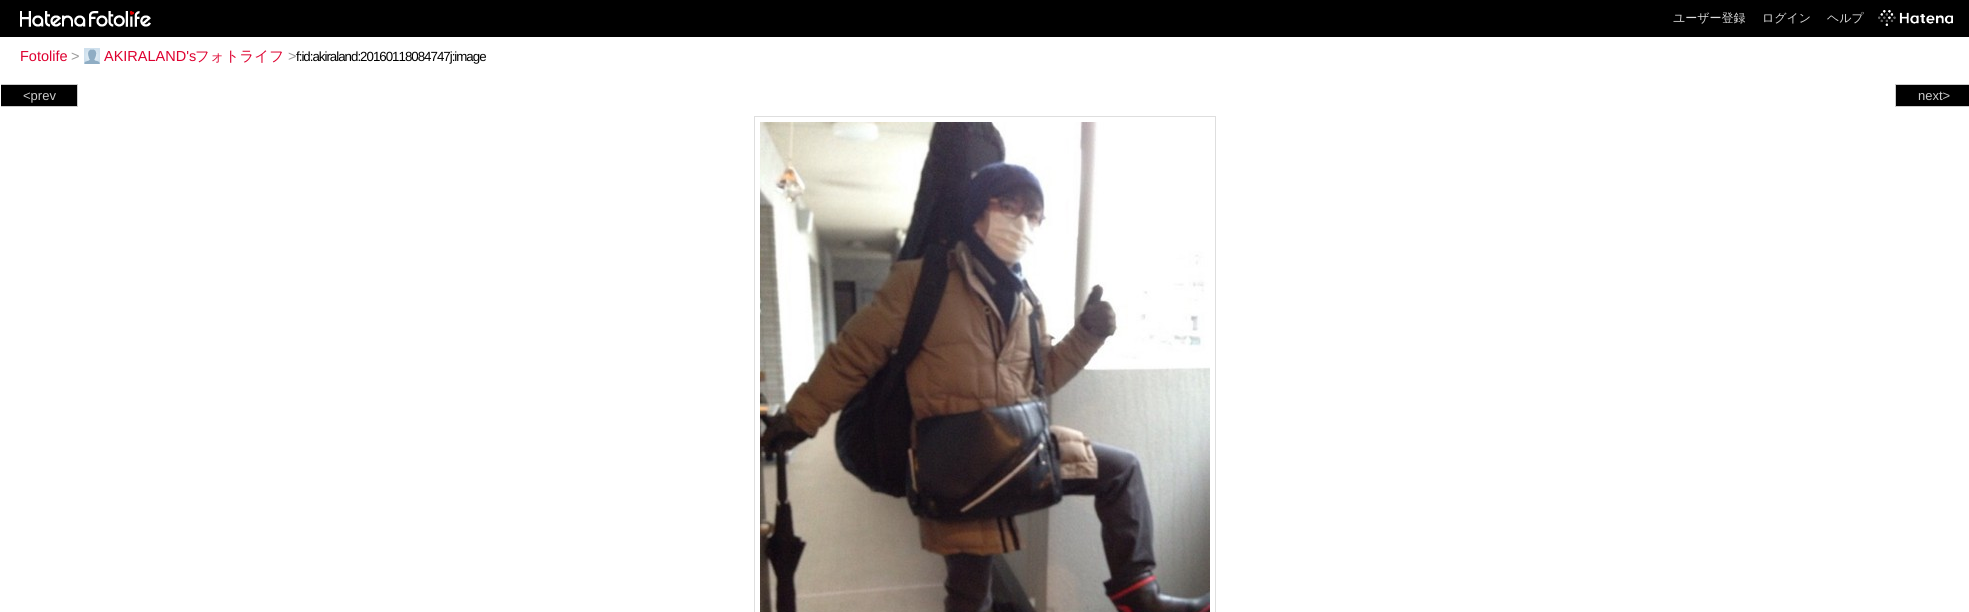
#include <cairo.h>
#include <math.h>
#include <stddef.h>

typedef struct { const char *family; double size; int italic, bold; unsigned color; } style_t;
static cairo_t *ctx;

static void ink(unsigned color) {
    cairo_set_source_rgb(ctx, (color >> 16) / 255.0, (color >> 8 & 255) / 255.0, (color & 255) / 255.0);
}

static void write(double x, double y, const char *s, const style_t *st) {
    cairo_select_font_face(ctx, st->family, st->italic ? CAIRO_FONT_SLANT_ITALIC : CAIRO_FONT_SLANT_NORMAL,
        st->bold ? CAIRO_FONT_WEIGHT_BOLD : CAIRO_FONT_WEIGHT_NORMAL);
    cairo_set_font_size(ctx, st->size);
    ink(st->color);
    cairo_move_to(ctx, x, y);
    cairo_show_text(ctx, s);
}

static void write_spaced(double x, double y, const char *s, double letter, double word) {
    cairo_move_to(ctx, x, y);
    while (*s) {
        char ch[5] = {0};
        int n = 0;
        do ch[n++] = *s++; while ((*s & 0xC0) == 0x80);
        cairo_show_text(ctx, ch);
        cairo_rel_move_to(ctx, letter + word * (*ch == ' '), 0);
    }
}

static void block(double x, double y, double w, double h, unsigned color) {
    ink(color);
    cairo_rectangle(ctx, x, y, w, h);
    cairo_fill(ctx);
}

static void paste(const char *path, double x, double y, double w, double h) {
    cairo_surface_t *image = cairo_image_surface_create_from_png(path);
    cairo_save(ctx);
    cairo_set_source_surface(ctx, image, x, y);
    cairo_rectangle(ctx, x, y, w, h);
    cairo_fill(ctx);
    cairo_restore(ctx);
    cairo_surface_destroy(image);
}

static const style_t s1 = {"WenQuanYi Zen Hei Medium", 12, 0, 0, 0xdddddd};
static const style_t s2 = {"Liberation Sans", 14.5, 0, 0, 0xde002f};
static const style_t s3 = {"Liberation Sans", 14.5, 0, 0, 0x999999};
static const style_t s4 = {"WenQuanYi Zen Hei Medium", 14.5, 0, 0, 0xde002f};
static const style_t s5 = {"Liberation Sans", 13, 0, 0, 0xcccccc};

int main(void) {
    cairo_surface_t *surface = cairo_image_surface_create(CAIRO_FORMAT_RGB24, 1969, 612);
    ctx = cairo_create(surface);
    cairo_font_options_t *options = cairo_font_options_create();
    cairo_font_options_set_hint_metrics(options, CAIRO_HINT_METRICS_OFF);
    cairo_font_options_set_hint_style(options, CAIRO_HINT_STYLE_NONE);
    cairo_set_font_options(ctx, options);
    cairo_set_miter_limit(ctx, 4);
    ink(0xffffff);
    cairo_paint(ctx);
    block(0, 0, 1969, 37, 0x000000);
    paste("pic1.png", 20, 11, 66, 16);
    paste("pic2.png", 89, 11, 62, 16);
    write(1673, 22, "ユーザー登録", &s1);
    write(1762, 22, "ログイン", &s1);
    write(1827, 22, "ヘルプ", &s1);
    paste("pic3.png", 1878, 10, 75, 16);
    write(20, 61, "Fotolife", &s2);
    write(71, 61, ">", &s3);
    paste("pic4.png", 84, 48, 16, 16);
    write(104, 61, "AKIRALAND's", &s2);
    write(195, 61, "フォトライフ", &s4);
    write(288, 61, ">", &s3);
    cairo_set_font_size(ctx, 13.3);
    ink(0x000000);
    write_spaced(296, 61, "f:id:akiraland:20160118084747j:image", -1, 0);
    block(1, 85, 76, 21, 0x000000);
    block(1, 84, 77, 1, 0xcccccc);
    block(77, 84, 1, 23, 0xcccccc);
    block(1, 106, 77, 1, 0xcccccc);
    write(23, 100, "<prev", &s5);
    block(1896, 85, 73, 21, 0x000000);
    block(1895, 84, 74, 1, 0xcccccc);
    block(1895, 106, 74, 1, 0xcccccc);
    block(1895, 84, 1, 23, 0xcccccc);
    write(1918, 100, "next>", &s5);
    cairo_rectangle(ctx, 754.5, 116.5, 461, 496);
    ink(0xdedede);
    cairo_set_line_width(ctx, 1);
    cairo_stroke(ctx);
    paste("pic5.png", 760, 122, 450, 490);
    cairo_surface_write_to_png(surface, "screenshot.png");
    cairo_font_options_destroy(options);
    cairo_destroy(ctx);
    cairo_surface_destroy(surface);
    return 0;
}
